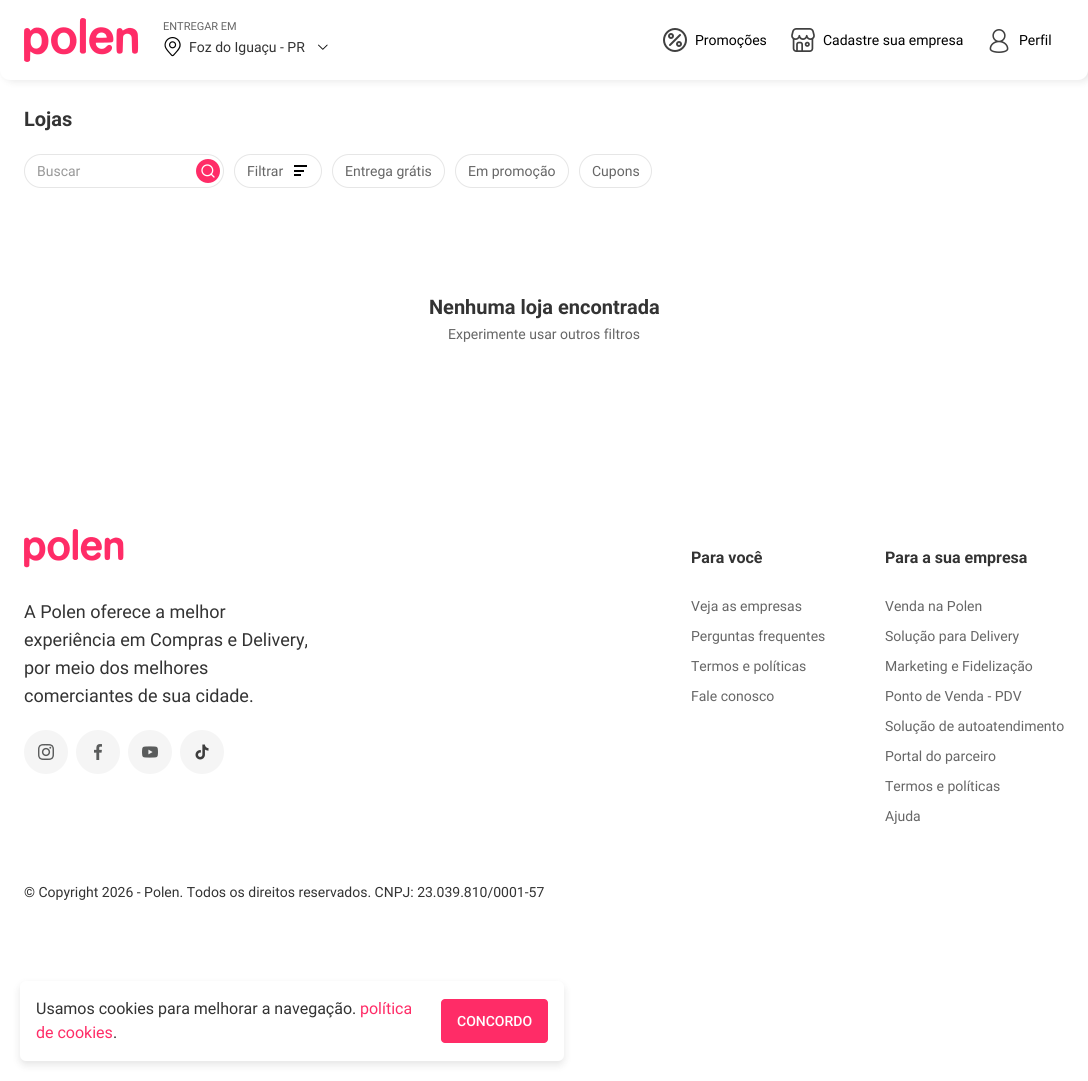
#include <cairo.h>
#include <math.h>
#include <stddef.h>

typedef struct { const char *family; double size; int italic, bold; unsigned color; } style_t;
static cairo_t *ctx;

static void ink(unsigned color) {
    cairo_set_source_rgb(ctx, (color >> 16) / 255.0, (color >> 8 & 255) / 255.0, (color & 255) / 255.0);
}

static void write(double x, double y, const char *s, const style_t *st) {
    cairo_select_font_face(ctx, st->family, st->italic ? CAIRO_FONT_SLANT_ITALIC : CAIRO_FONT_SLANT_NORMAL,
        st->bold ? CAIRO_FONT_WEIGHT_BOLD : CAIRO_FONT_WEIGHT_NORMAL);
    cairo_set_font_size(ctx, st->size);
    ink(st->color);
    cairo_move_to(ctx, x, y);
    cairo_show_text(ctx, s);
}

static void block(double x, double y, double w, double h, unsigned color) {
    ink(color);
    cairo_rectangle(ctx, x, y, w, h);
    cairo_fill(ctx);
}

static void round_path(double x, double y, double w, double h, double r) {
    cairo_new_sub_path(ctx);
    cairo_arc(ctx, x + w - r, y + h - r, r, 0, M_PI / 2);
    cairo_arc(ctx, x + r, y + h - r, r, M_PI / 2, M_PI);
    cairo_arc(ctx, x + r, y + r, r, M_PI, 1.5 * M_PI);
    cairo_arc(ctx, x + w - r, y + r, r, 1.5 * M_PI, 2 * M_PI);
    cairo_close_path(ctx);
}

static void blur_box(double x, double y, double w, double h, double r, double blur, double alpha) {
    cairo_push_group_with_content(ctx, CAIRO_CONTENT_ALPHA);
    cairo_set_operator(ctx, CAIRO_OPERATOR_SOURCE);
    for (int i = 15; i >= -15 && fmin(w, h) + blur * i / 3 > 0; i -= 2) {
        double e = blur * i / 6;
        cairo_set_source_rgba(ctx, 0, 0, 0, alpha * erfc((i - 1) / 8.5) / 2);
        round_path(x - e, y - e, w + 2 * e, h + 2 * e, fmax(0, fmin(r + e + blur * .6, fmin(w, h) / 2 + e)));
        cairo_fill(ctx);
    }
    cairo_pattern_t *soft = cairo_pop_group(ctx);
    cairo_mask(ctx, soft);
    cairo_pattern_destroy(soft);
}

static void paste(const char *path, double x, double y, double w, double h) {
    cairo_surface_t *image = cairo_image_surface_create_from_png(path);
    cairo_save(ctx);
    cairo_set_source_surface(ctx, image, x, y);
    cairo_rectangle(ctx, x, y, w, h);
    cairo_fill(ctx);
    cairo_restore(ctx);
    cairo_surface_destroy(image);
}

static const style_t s1 = {"Roboto", 11, 0, 0, 0x666666};
static const style_t s2 = {"Roboto", 14, 0, 0, 0x333333};
static const style_t s3 = {"Roboto", 14, 0, 0, 0x000000};
static const style_t s4 = {"Roboto", 20, 0, 1, 0x333333};
static const style_t s5 = {"Roboto", 14, 0, 0, 0x999999};
static const style_t s6 = {"Roboto", 14, 0, 0, 0x666666};
static const style_t s7 = {"Roboto", 18, 0, 0, 0x333333};
static const style_t s8 = {"Roboto", 16, 0, 1, 0x333333};
static const style_t s9 = {"Roboto", 16, 0, 0, 0x333333};
static const style_t s10 = {"Roboto", 16, 0, 0, 0xff2c67};
static const style_t s11 = {"Roboto Medium", 14, 0, 0, 0xffffff};

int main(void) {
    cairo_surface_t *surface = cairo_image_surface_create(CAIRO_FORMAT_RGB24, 1088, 1081);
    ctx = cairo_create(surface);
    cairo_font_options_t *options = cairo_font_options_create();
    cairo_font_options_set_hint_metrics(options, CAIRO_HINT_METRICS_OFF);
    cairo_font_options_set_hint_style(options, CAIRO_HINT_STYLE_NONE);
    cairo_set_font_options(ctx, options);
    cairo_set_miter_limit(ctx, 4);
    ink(0xffffff);
    cairo_paint(ctx);
    ink(0x000000);
    blur_box(3, -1, 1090, 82, 11, 4, 0.1);
    ink(0xffffff);
    cairo_new_path(ctx);
    cairo_move_to(ctx, 0, 0);
    cairo_line_to(ctx, 1088, 0);
    cairo_line_to(ctx, 1088, 70);
    cairo_curve_to(ctx, 1088, 75.5, 1083.5, 80, 1078, 80);
    cairo_line_to(ctx, 10, 80);
    cairo_curve_to(ctx, 4.5, 80, 0, 75.5, 0, 70);
    cairo_close_path(ctx);
    cairo_fill(ctx);
    paste("pic1.png", 24, 18, 115, 44);
    write(163, 30, "ENTREGAR EM", &s1);
    paste("pic2.png", 164, 37, 17, 20);
    write(189, 52, "Foz do Iguaçu - PR", &s2);
    paste("pic3.png", 318, 44, 10, 6);
    paste("pic4.png", 663, 28, 24, 24);
    write(695, 45, "Promoções", &s3);
    paste("pic5.png", 791, 28, 24, 24);
    write(823, 45, "Cadastre sua empresa", &s3);
    paste("pic6.png", 989, 29, 20, 24);
    write(1019, 45, "Perfil", &s3);
    write(24, 126, "Lojas", &s4);
    round_path(24.5, 154.5, 199, 33, 16.5);
    ink(0xe6e6e6);
    cairo_set_line_width(ctx, 1);
    cairo_stroke(ctx);
    write(37, 176, "Buscar", &s5);
    ink(0xff2c67);
    cairo_new_path(ctx);
    cairo_arc(ctx, 208, 171, 12, 0, 2 * M_PI);
    cairo_fill(ctx);
    paste("pic7.png", 201, 164, 14, 14);
    round_path(234.5, 154.5, 87, 33, 16.5);
    ink(0xe6e6e6);
    cairo_stroke(ctx);
    write(247, 176, "Filtrar", &s6);
    block(294, 174, 7, 2, 0x000000);
    block(294, 170, 10, 2, 0x000000);
    block(294, 165, 13, 2, 0x000000);
    round_path(332.5, 154.5, 112, 33, 16.5);
    ink(0xe6e6e6);
    cairo_stroke(ctx);
    write(345, 176, "Entrega grátis", &s6);
    round_path(455.5, 154.5, 113, 33, 16.5);
    ink(0xe6e6e6);
    cairo_stroke(ctx);
    write(468, 176, "Em promoção", &s6);
    round_path(579.5, 154.5, 72, 33, 16.5);
    ink(0xe6e6e6);
    cairo_stroke(ctx);
    write(592, 176, "Cupons", &s6);
    write(429, 314, "Nenhuma loja encontrada", &s4);
    write(448, 339, "Experimente usar outros filtros", &s6);
    paste("pic8.png", 24, 529, 100, 39);
    write(24, 618, "A Polen oferece a melhor", &s7);
    write(24, 646, "experiência em Compras e Delivery,", &s7);
    write(24, 674, "por meio dos melhores", &s7);
    write(24, 702, "comerciantes de sua cidade.", &s7);
    ink(0xf5f5f5);
    cairo_new_path(ctx);
    cairo_arc(ctx, 46, 752, 22, 0, 2 * M_PI);
    cairo_fill(ctx);
    paste("pic9.png", 38, 744, 16, 16);
    cairo_arc(ctx, 98, 752, 22, 0, 2 * M_PI);
    cairo_fill(ctx);
    paste("pic10.png", 94, 744, 8, 16);
    cairo_arc(ctx, 150, 752, 22, 0, 2 * M_PI);
    cairo_fill(ctx);
    paste("pic11.png", 142, 746, 16, 12);
    cairo_arc(ctx, 202, 752, 22, 0, 2 * M_PI);
    cairo_fill(ctx);
    paste("pic12.png", 195, 744, 14, 16);
    write(691, 563, "Para você", &s8);
    write(691, 611, "Veja as empresas", &s6);
    write(691, 641, "Perguntas frequentes", &s6);
    write(691, 671, "Termos e políticas", &s6);
    write(691, 701, "Fale conosco", &s6);
    write(885, 563, "Para a sua empresa", &s8);
    write(885, 611, "Venda na Polen", &s6);
    write(885, 641, "Solução para Delivery", &s6);
    write(885, 671, "Marketing e Fidelização", &s6);
    write(885, 701, "Ponto de Venda - PDV", &s6);
    write(885, 731, "Solução de autoatendimento", &s6);
    write(885, 761, "Portal do parceiro", &s6);
    write(885, 791, "Termos e políticas", &s6);
    write(885, 821, "Ajuda", &s6);
    write(24, 897, "© Copyright 2026 - Polen. Todos os direitos reservados. CNPJ: 23.039.810/0001-57", &s2);
    ink(0x000000);
    blur_box(20, 985, 544, 80, 6, 4, 0.1);
    ink(0xffffff);
    round_path(20, 981, 544, 80, 6);
    cairo_fill(ctx);
    write(36, 1014, "Usamos cookies para melhorar a navegação.", &s9);
    write(360, 1014, "política", &s10);
    write(36, 1038, "de cookies", &s10);
    write(113, 1038, ".", &s9);
    ink(0xff2c67);
    round_path(441, 999, 107, 44, 4);
    cairo_fill(ctx);
    write(457, 1026, "CONCORDO", &s11);
    cairo_surface_write_to_png(surface, "screenshot.png");
    cairo_font_options_destroy(options);
    cairo_destroy(ctx);
    cairo_surface_destroy(surface);
    return 0;
}
